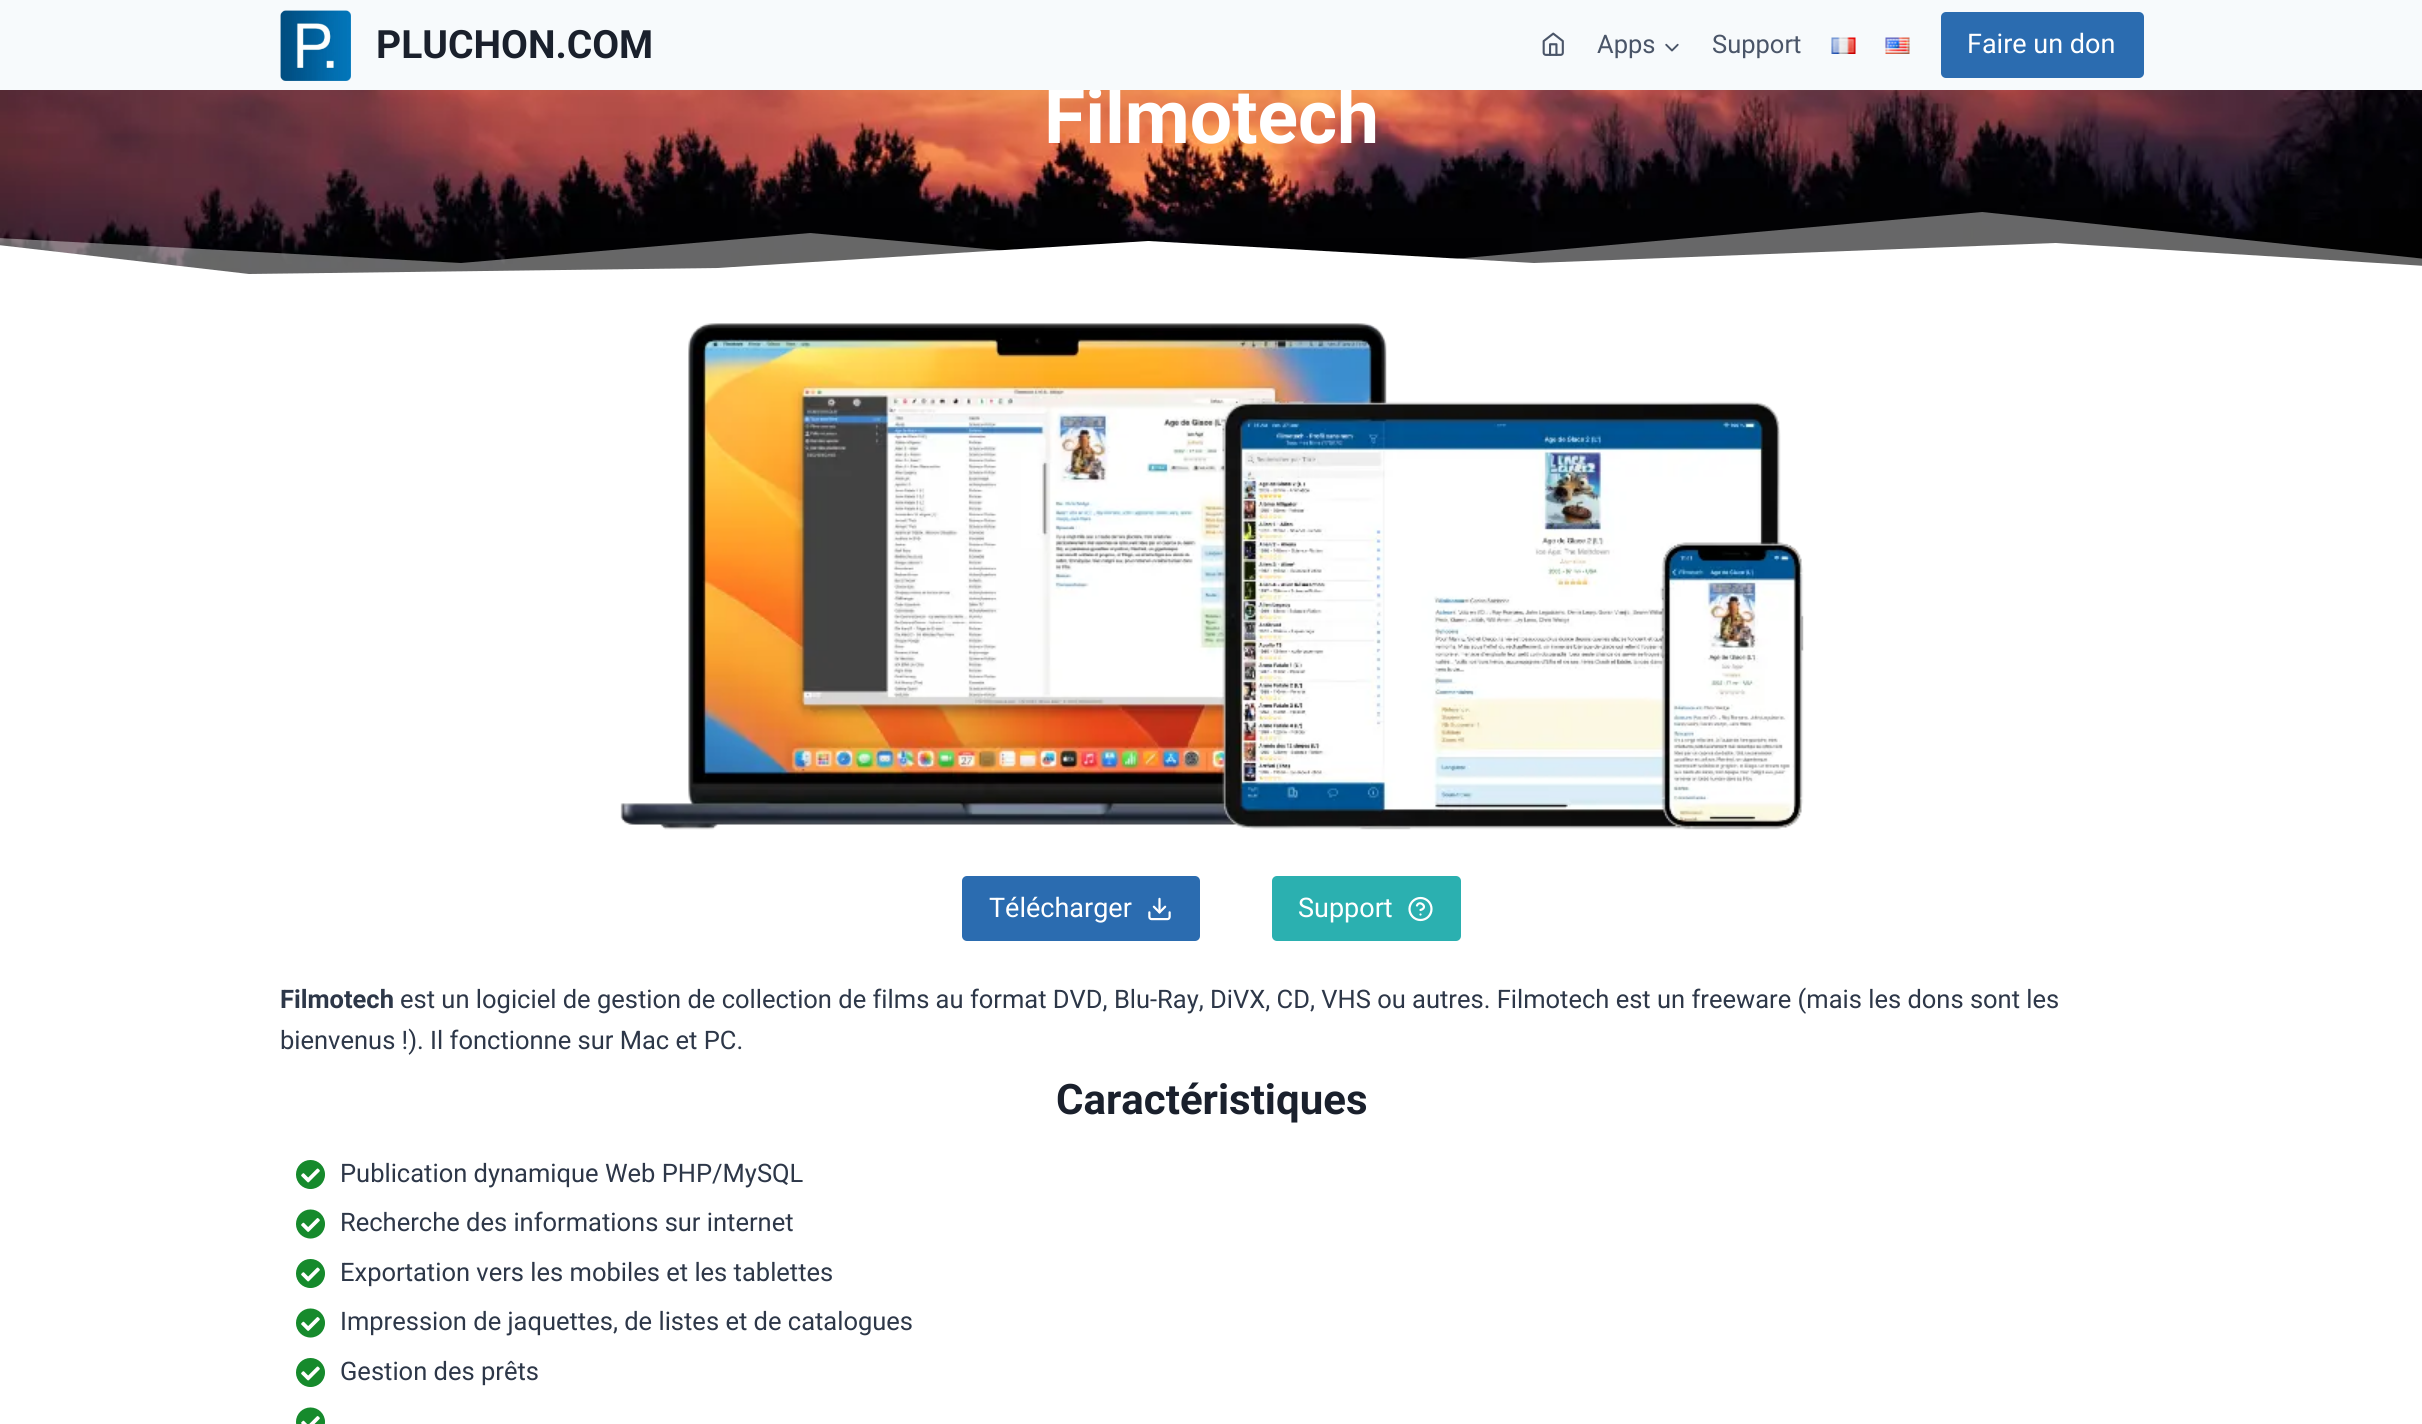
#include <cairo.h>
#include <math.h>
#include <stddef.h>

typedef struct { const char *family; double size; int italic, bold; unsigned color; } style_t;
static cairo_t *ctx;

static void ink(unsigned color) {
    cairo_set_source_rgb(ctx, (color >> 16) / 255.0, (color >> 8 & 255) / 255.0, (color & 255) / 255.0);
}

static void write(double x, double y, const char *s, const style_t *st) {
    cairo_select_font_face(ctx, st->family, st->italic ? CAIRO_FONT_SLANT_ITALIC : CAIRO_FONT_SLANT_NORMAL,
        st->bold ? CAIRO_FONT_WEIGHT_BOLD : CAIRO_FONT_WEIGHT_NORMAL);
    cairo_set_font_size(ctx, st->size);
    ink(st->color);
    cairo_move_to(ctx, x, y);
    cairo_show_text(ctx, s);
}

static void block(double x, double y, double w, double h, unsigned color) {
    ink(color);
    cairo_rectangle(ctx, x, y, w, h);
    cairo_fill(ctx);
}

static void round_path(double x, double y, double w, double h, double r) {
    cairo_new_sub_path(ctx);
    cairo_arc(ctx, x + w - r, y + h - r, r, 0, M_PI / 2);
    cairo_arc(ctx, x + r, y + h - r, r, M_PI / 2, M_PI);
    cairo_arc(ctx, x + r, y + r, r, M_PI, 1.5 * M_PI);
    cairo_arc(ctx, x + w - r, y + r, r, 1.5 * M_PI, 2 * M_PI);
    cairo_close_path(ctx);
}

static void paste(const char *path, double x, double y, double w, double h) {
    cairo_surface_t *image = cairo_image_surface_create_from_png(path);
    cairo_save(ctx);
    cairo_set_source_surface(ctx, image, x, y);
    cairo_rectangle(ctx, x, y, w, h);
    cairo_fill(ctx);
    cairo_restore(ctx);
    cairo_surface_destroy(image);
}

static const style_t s1 = {"Roboto", 75, 0, 1, 0xffffff};
static const style_t s2 = {"Roboto", 39, 0, 1, 0x1a202c};
static const style_t s3 = {"Roboto", 25.5, 0, 0, 0x4a5568};
static const style_t s4 = {"Roboto", 27, 0, 0, 0xffffff};
static const style_t s5 = {"Roboto", 25.5, 0, 1, 0x2d3748};
static const style_t s6 = {"Roboto", 25.5, 0, 0, 0x2d3748};
static const style_t s7 = {"Roboto", 42, 0, 1, 0x1a202c};

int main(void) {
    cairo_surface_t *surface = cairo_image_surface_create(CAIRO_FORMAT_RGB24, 2422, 1424);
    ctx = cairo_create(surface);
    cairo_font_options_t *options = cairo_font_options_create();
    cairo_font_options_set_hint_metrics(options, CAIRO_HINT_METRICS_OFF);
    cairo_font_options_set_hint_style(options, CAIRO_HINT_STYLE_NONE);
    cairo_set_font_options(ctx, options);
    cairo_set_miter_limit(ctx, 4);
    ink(0xffffff);
    cairo_paint(ctx);
    paste("pic6.png", 0, 90, 2422, 184);
    write(1044, 143, "Filmotech", &s1);
    block(0, 0, 2422, 90, 0xf7fafc);
    paste("pic1.png", 280, 10, 71, 71);
    write(376, 58, "PLUCHON.COM", &s2);
    paste("pic2.png", 1542, 32, 22, 24);
    write(1597, 53, "Apps", &s3);
    paste("pic3.png", 1665, 43, 14, 9);
    write(1712, 53, "Support", &s3);
    paste("pic4.png", 1831, 37, 25, 17);
    paste("pic5.png", 1885, 37, 25, 17);
    ink(0x2b6cb0);
    round_path(1941, 12, 203, 66, 5);
    cairo_fill(ctx);
    write(1967, 53, "Faire un don", &s4);
    cairo_set_source_rgba(ctx, 1, 1, 1, 0.4);
    cairo_new_path(ctx);
    cairo_move_to(ctx, 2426, 259);
    cairo_line_to(ctx, 1982, 212);
    cairo_line_to(ctx, 1273, 275);
    cairo_line_to(ctx, 810, 233);
    cairo_line_to(ctx, 461, 263);
    cairo_line_to(ctx, -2, 238);
    cairo_line_to(ctx, -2, 310);
    cairo_line_to(ctx, 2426, 310);
    cairo_close_path(ctx);
    cairo_fill(ctx);
    ink(0xffffff);
    cairo_new_path(ctx);
    cairo_move_to(ctx, 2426, 266);
    cairo_line_to(ctx, 2055, 243);
    cairo_line_to(ctx, 1534, 263);
    cairo_line_to(ctx, 1148, 241);
    cairo_line_to(ctx, 717, 268);
    cairo_line_to(ctx, 249, 274);
    cairo_line_to(ctx, -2, 245);
    cairo_line_to(ctx, -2, 310);
    cairo_line_to(ctx, 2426, 310);
    cairo_close_path(ctx);
    cairo_fill(ctx);
    paste("pic7.png", 620, 323, 1184, 507);
    ink(0x2b6cb0);
    round_path(962, 876, 238, 65, 5);
    cairo_fill(ctx);
    write(989, 917, "Télécharger", &s4);
    paste("pic8.png", 1148, 897, 23, 24);
    ink(0x2bb0b0);
    round_path(1272, 876, 189, 65, 5);
    cairo_fill(ctx);
    write(1298, 917, "Support", &s4);
    cairo_new_path(ctx);
    cairo_arc(ctx, 1420.5, 909, 11, 0, 2 * M_PI);
    cairo_set_line_width(ctx, 2.2);
    cairo_stroke(ctx);
    cairo_new_path(ctx);
    cairo_move_to(ctx, 1417, 905.5);
    cairo_curve_to(ctx, 1419.5, 899.5, 1429, 907.5, 1420.5, 910);
    cairo_move_to(ctx, 1420.5, 914.5);
    cairo_line_to(ctx, 1420.5, 914.5);
    cairo_set_line_cap(ctx, CAIRO_LINE_CAP_ROUND);
    cairo_set_line_join(ctx, CAIRO_LINE_JOIN_ROUND);
    cairo_stroke(ctx);
    write(280, 1008, "Filmotech", &s5);
    write(400, 1008, "est un logiciel de gestion de collection de films au format DVD, Blu-Ray, DiVX, CD, VHS ou autres. Filmotech est un freeware (mais les dons sont les", &s6);
    write(280, 1049, "bienvenus !). Il fonctionne sur Mac et PC.", &s6);
    write(1056, 1114, "Caractéristiques", &s7);
    paste("pic9.png", 296, 1160, 29, 29);
    write(340, 1182, "Publication dynamique Web PHP/MySQL", &s6);
    paste("pic10.png", 296, 1209, 29, 30);
    write(340, 1231, "Recherche des informations sur internet", &s6);
    paste("pic9.png", 296, 1259, 29, 29);
    write(340, 1281, "Exportation vers les mobiles et les tablettes", &s6);
    paste("pic10.png", 296, 1308, 29, 30);
    write(340, 1330, "Impression de jaquettes, de listes et de catalogues", &s6);
    paste("pic9.png", 296, 1358, 29, 29);
    write(340, 1380, "Gestion des prêts", &s6);
    paste("pic11.png", 296, 1407, 29, 17);
    cairo_surface_write_to_png(surface, "screenshot.png");
    cairo_font_options_destroy(options);
    cairo_destroy(ctx);
    cairo_surface_destroy(surface);
    return 0;
}
